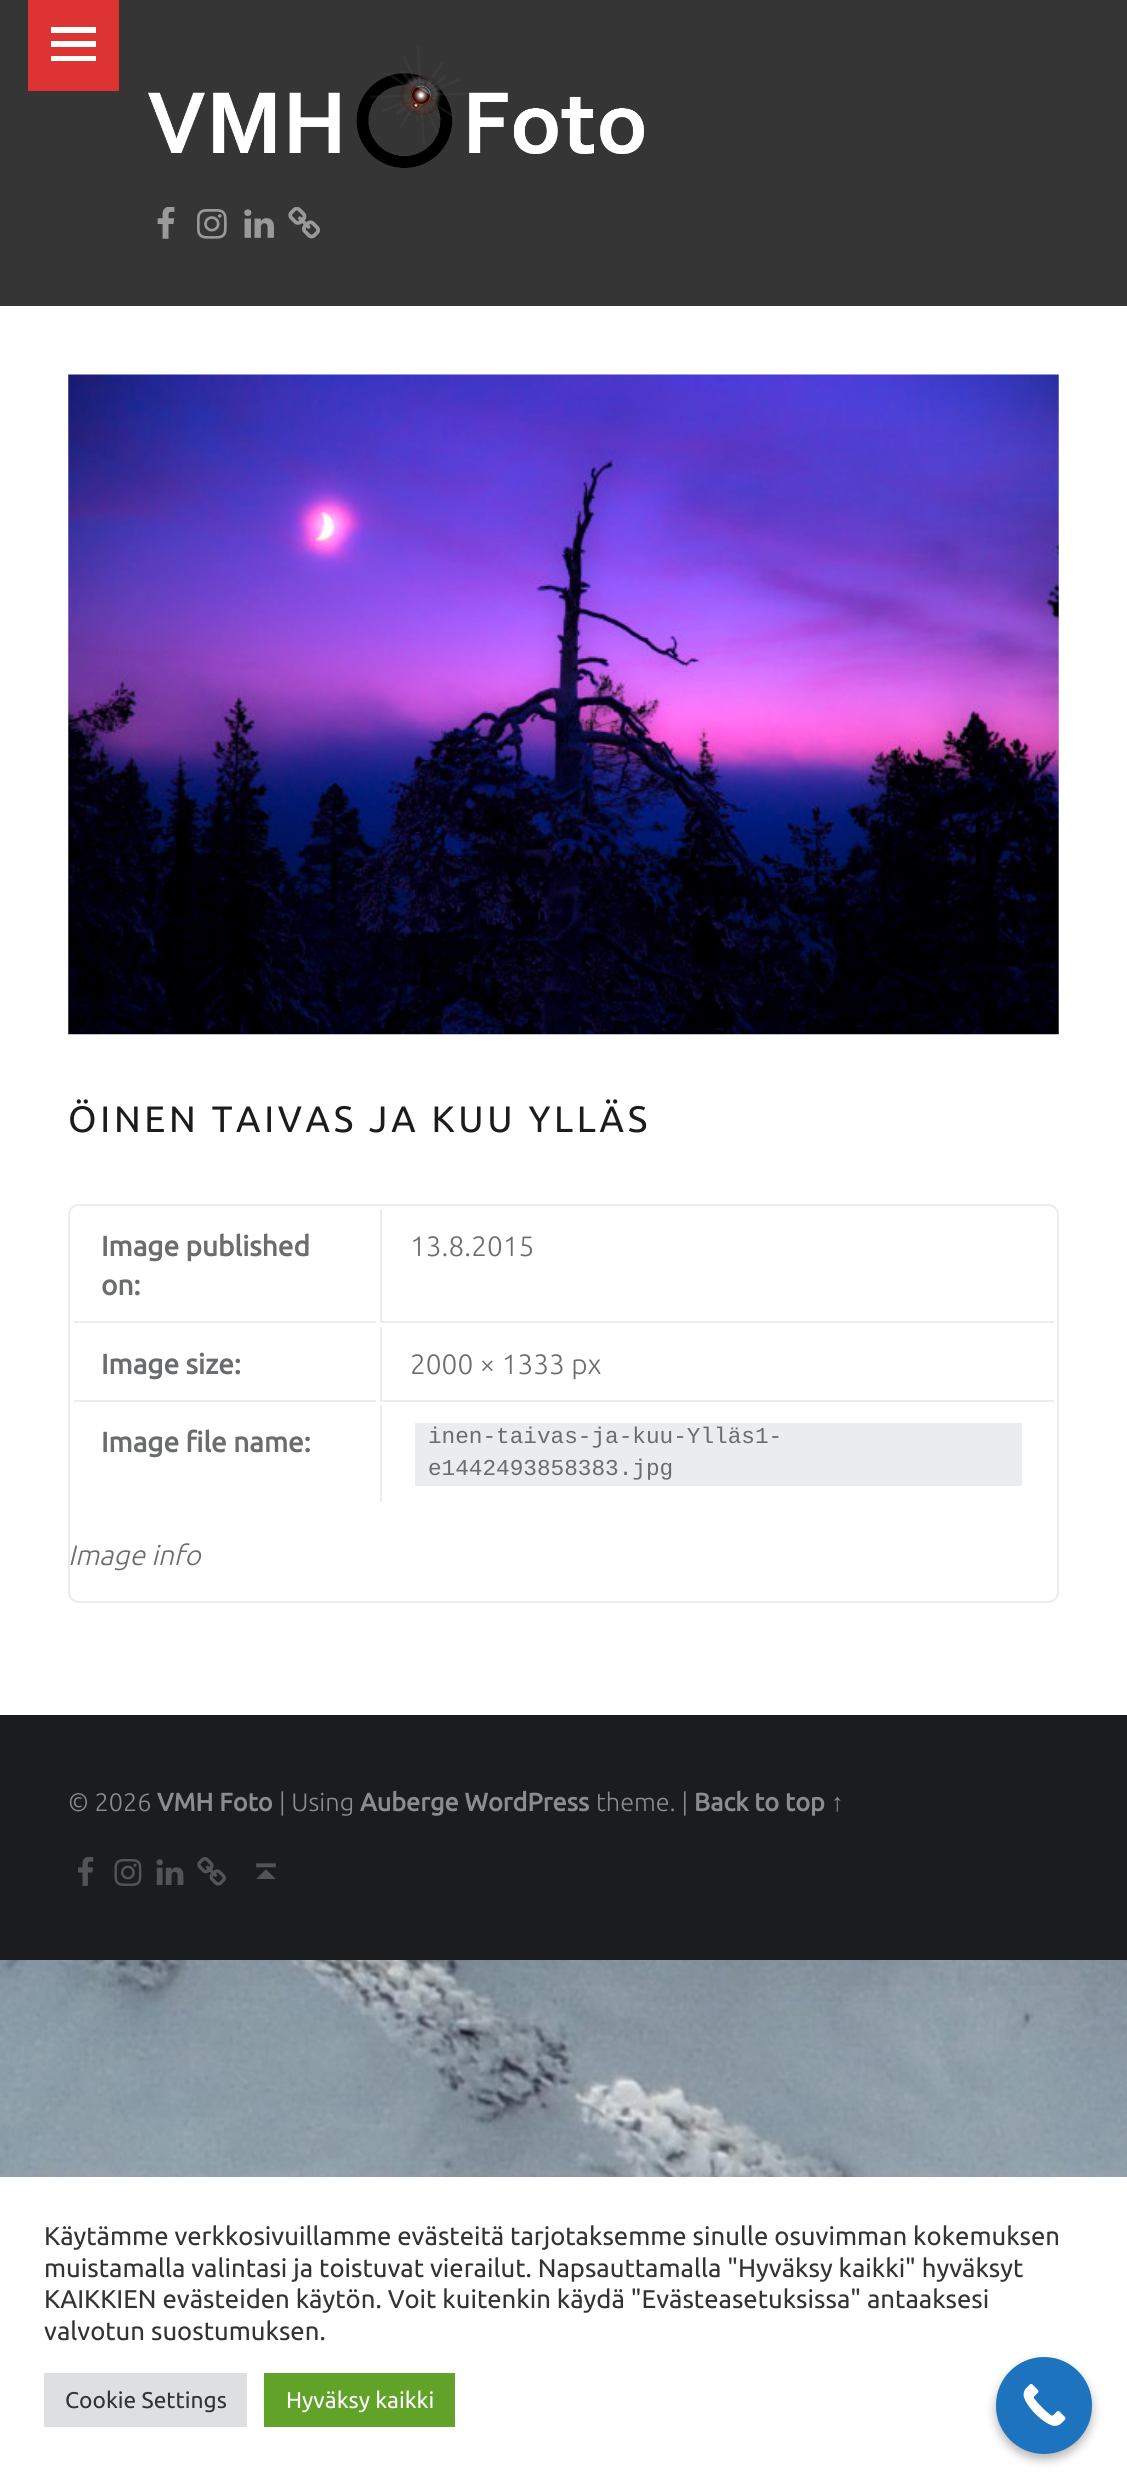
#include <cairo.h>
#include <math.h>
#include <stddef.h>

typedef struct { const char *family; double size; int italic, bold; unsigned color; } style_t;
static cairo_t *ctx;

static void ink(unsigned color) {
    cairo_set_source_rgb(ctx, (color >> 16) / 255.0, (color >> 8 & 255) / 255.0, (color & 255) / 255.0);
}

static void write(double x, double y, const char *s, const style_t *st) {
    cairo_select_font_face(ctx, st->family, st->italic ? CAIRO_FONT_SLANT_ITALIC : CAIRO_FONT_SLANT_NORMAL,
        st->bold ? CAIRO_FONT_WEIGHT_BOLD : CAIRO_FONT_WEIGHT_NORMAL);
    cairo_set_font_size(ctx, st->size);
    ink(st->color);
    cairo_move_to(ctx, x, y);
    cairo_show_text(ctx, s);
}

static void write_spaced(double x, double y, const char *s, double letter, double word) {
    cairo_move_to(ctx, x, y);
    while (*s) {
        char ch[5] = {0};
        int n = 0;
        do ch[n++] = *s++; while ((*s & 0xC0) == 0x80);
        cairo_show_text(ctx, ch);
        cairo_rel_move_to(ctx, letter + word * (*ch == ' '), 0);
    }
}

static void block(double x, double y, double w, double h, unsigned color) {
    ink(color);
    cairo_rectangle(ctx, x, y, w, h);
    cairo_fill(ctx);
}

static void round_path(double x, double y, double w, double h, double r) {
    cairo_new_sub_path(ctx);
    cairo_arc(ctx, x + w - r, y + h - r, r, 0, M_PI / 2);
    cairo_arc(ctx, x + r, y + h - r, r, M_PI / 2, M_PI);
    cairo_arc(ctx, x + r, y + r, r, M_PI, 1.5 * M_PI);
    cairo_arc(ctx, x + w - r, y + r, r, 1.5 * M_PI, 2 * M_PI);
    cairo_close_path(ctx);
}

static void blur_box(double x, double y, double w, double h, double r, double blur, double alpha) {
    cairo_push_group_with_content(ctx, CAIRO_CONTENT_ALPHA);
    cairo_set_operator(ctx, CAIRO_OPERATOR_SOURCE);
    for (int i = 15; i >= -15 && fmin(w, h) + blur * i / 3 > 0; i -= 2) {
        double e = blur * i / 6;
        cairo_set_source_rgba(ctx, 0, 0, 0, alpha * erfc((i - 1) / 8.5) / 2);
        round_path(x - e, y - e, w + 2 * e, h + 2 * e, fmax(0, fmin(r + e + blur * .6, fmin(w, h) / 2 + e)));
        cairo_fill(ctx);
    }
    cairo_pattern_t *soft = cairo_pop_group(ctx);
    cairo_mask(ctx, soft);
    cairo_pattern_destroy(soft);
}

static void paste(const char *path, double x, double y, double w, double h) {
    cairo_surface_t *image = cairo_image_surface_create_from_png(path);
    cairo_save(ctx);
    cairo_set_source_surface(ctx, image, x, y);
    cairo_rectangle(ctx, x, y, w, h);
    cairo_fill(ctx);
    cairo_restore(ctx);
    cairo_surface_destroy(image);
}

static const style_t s1 = {"Ubuntu", 28, 0, 1, 0x6a6c6e};
static const style_t s2 = {"Ubuntu Light", 28, 0, 0, 0x6a6c6e};
static const style_t s3 = {"Liberation Mono", 22.7, 0, 0, 0x6a6c6e};
static const style_t s4 = {"Ubuntu Light", 28, 1, 0, 0x6a6c6e};
static const style_t s5 = {"Ubuntu Light", 25.25, 0, 0, 0x8a8c8e};
static const style_t s6 = {"Ubuntu", 25.25, 0, 1, 0x8a8c8e};
static const style_t s7 = {"Liberation Sans", 25.25, 0, 1, 0x8a8c8e};
static const style_t s8 = {"Ubuntu", 25.65, 0, 0, 0x333333};
static const style_t s9 = {"Ubuntu", 22.75, 0, 0, 0x333333};
static const style_t s10 = {"Ubuntu", 22.75, 0, 0, 0xffffff};

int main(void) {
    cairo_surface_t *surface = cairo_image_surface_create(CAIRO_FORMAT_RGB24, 1127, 2479);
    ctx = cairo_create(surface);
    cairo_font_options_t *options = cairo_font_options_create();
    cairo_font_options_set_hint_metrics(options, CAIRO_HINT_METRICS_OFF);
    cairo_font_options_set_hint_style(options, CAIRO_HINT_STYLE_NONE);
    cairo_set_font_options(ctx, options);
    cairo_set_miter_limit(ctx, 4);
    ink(0xffffff);
    cairo_paint(ctx);
    paste("pic1.png", 0, 1960, 1127, 217);
    ink(0x000000);
    blur_box(0, 0, 1127, 1960, 0, 50.5, 0.07);
    block(0, 306, 1127, 1409, 0xffffff);
    block(0, 0, 1127, 306, 0x353535);
    block(28, 0, 91, 91, 0xdd3333);
    ink(0xffffff);
    cairo_new_path(ctx);
    cairo_move_to(ctx, 51, 61);
    cairo_line_to(ctx, 51, 56);
    cairo_line_to(ctx, 96, 56);
    cairo_line_to(ctx, 96, 61);
    cairo_close_path(ctx);
    cairo_move_to(ctx, 51, 27);
    cairo_line_to(ctx, 96, 27);
    cairo_line_to(ctx, 96, 33);
    cairo_line_to(ctx, 51, 33);
    cairo_close_path(ctx);
    cairo_move_to(ctx, 51, 47);
    cairo_line_to(ctx, 51, 41);
    cairo_line_to(ctx, 96, 41);
    cairo_line_to(ctx, 96, 47);
    cairo_close_path(ctx);
    cairo_fill(ctx);
    paste("pic2.png", 148, 46, 496, 122);
    paste("pic3.png", 157, 207, 18, 32);
    paste("pic4.png", 197, 209, 30, 30);
    paste("pic5.png", 244, 209, 30, 29);
    paste("pic6.png", 288, 207, 32, 32);
    paste("pic7.png", 68, 374, 991, 661);
    cairo_select_font_face(ctx, "Ubuntu", CAIRO_FONT_SLANT_NORMAL, CAIRO_FONT_WEIGHT_NORMAL);
    cairo_set_font_size(ctx, 36.75);
    ink(0x1a1c1e);
    write_spaced(68, 1132, "ÖINEN TAIVAS JA KUU YLLÄS", 3.7, 0);
    round_path(69, 1205, 989, 397, 10);
    ink(0xeaecee);
    cairo_stroke(ctx);
    block(74, 1321, 302, 2, 0xeaecee);
    write(101, 1256, "Image published", &s1);
    write(101, 1295, "on:", &s1);
    block(380, 1321, 674, 2, 0xeaecee);
    block(380, 1209, 2, 114, 0xeaecee);
    write(410, 1256, "13.8.2015", &s2);
    block(74, 1400, 302, 2, 0xeaecee);
    write(101, 1374, "Image size:", &s1);
    block(380, 1400, 674, 2, 0xeaecee);
    block(380, 1327, 2, 75, 0xeaecee);
    write(410, 1374, "2000 × 1333 px", &s2);
    write(101, 1452, "Image file name:", &s1);
    block(380, 1405, 2, 97, 0xeaecee);
    block(415, 1423, 607, 63, 0xeaecee);
    write(428, 1443, "inen-taivas-ja-kuu-Ylläs1-", &s3);
    write(428, 1475, "e1442493858383.jpg", &s3);
    write(68, 1565, "Image info", &s4);
    block(0, 1715, 1127, 245, 0x1a1c1e);
    write(68, 1811, "© 2026", &s5);
    write(157, 1811, "VMH Foto", &s6);
    write(279, 1811, "| Using", &s5);
    write(360, 1811, "Auberge WordPress", &s6);
    write(596, 1811, "theme. |", &s5);
    write(694, 1811, "Back to top", &s6);
    write(831, 1811, "↑", &s7);
    paste("pic8.png", 78, 1857, 16, 29);
    paste("pic9.png", 114, 1859, 28, 27);
    paste("pic10.png", 156, 1859, 28, 26);
    paste("pic11.png", 197, 1857, 29, 29);
    paste("pic12.png", 256, 1863, 20, 16);
    ink(0xacabab);
    blur_box(0, 2175, 1127, 303, 0, 9, 0.3);
    block(0, 2177, 1127, 302, 0xffffff);
    write(44, 2245, "Käytämme verkkosivuillamme evästeitä tarjotaksemme sinulle osuvimman kokemuksen", &s8);
    write(44, 2277, "muistamalla valintasi ja toistuvat vierailut. Napsauttamalla \"Hyväksy kaikki\" hyväksyt", &s8);
    write(44, 2308, "KAIKKIEN evästeiden käytön. Voit kuitenkin käydä \"Evästeasetuksissa\" antaaksesi", &s8);
    write(44, 2340, "valvotun suostumuksen.", &s8);
    block(44, 2373, 203, 54, 0xdedfe0);
    write(65, 2408, "Cookie Settings", &s9);
    block(264, 2373, 191, 54, 0x61a229);
    write(286, 2408, "Hyväksy kaikki", &s10);
    ink(0x000000);
    blur_box(996, 2363, 96, 96, 48, 5, 0.3);
    ink(0x1e73be);
    round_path(996, 2357, 96, 97, 48);
    cairo_fill(ctx);
    paste("pic13.png", 1023, 2384, 43, 42);
    cairo_surface_write_to_png(surface, "screenshot.png");
    cairo_font_options_destroy(options);
    cairo_destroy(ctx);
    cairo_surface_destroy(surface);
    return 0;
}
